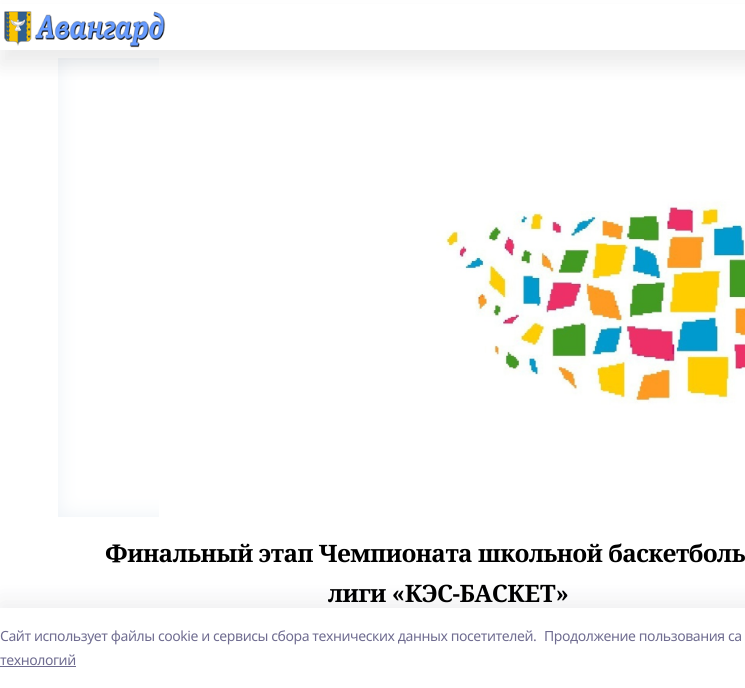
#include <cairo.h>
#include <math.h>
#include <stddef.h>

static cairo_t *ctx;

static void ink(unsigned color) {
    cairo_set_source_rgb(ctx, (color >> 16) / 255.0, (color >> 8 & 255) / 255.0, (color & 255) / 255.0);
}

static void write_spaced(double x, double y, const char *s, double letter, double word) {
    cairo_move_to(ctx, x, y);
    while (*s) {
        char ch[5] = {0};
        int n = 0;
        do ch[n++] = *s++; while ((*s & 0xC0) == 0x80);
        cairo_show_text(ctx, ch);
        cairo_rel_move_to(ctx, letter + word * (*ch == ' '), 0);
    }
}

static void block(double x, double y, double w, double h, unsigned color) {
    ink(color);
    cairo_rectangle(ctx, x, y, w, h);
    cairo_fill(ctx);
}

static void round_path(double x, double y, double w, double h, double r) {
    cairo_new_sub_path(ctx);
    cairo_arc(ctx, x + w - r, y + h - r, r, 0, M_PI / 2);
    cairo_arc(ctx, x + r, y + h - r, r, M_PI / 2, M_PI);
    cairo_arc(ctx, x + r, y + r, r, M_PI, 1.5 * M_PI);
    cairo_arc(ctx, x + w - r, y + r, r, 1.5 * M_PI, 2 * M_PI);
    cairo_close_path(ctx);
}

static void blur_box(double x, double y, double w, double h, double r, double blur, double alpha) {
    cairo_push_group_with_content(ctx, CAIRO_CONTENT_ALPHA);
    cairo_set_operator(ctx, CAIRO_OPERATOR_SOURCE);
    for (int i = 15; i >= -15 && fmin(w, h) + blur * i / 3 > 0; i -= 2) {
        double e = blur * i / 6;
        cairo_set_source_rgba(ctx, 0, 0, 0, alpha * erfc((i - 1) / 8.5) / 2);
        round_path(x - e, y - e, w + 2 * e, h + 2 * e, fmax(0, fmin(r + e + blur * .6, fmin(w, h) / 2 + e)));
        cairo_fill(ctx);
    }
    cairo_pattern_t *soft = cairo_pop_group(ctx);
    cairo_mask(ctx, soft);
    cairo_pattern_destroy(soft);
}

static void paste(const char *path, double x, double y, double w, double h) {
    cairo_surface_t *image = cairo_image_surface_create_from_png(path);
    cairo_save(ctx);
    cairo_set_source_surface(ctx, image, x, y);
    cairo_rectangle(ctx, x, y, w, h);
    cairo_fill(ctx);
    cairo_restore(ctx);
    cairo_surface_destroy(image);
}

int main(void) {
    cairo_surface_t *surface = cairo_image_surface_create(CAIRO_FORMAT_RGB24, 745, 688);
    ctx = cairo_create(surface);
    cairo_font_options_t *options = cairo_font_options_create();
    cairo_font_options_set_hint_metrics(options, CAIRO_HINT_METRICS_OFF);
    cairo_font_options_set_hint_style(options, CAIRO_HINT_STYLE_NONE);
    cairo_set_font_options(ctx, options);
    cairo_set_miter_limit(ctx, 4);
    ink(0xffffff);
    cairo_paint(ctx);
    block(58, 58, 101, 459, 0xedf2f7);
    paste("pic2.png", 58, 58, 101, 459);
    paste("pic3.png", 159, 58, 586, 459);
    ink(0x000000);
    blur_box(0, 15, 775, 50, 0, 10, 0.08);
    block(0, 4, 745, 46, 0xffffff);
    paste("pic1.png", 4, 11, 162, 37);
    cairo_select_font_face(ctx, "Noto Serif", CAIRO_FONT_SLANT_NORMAL, CAIRO_FONT_WEIGHT_BOLD);
    cairo_set_font_size(ctx, 24);
    ink(0x000000);
    write_spaced(105, 562, "Финальный этап Чемпионата школьной баскетболь", -0.42, 0);
    write_spaced(328, 602, "лиги «КЭС-БАСКЕТ»", -0.42, 0);
    ink(0x14142b);
    blur_box(0, 602, 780, 80, 0, 11.5, 0.08);
    block(0, 608, 745, 80, 0xffffff);
    cairo_select_font_face(ctx, "Noto Sans", CAIRO_FONT_SLANT_NORMAL, CAIRO_FONT_WEIGHT_NORMAL);
    cairo_set_font_size(ctx, 14);
    ink(0x6f6c90);
    write_spaced(0, 641, "Cайт использует файлы cookie и сервисы сбора технических данных посетителей.", -0.42, 0);
    write_spaced(544, 641, "Продолжение пользования са", -0.42, 0);
    write_spaced(0, 665, "технологий", -0.42, 0);
    block(0, 666, 76, 1, 0x6f6c90);
    cairo_surface_write_to_png(surface, "screenshot.png");
    cairo_font_options_destroy(options);
    cairo_destroy(ctx);
    cairo_surface_destroy(surface);
    return 0;
}
